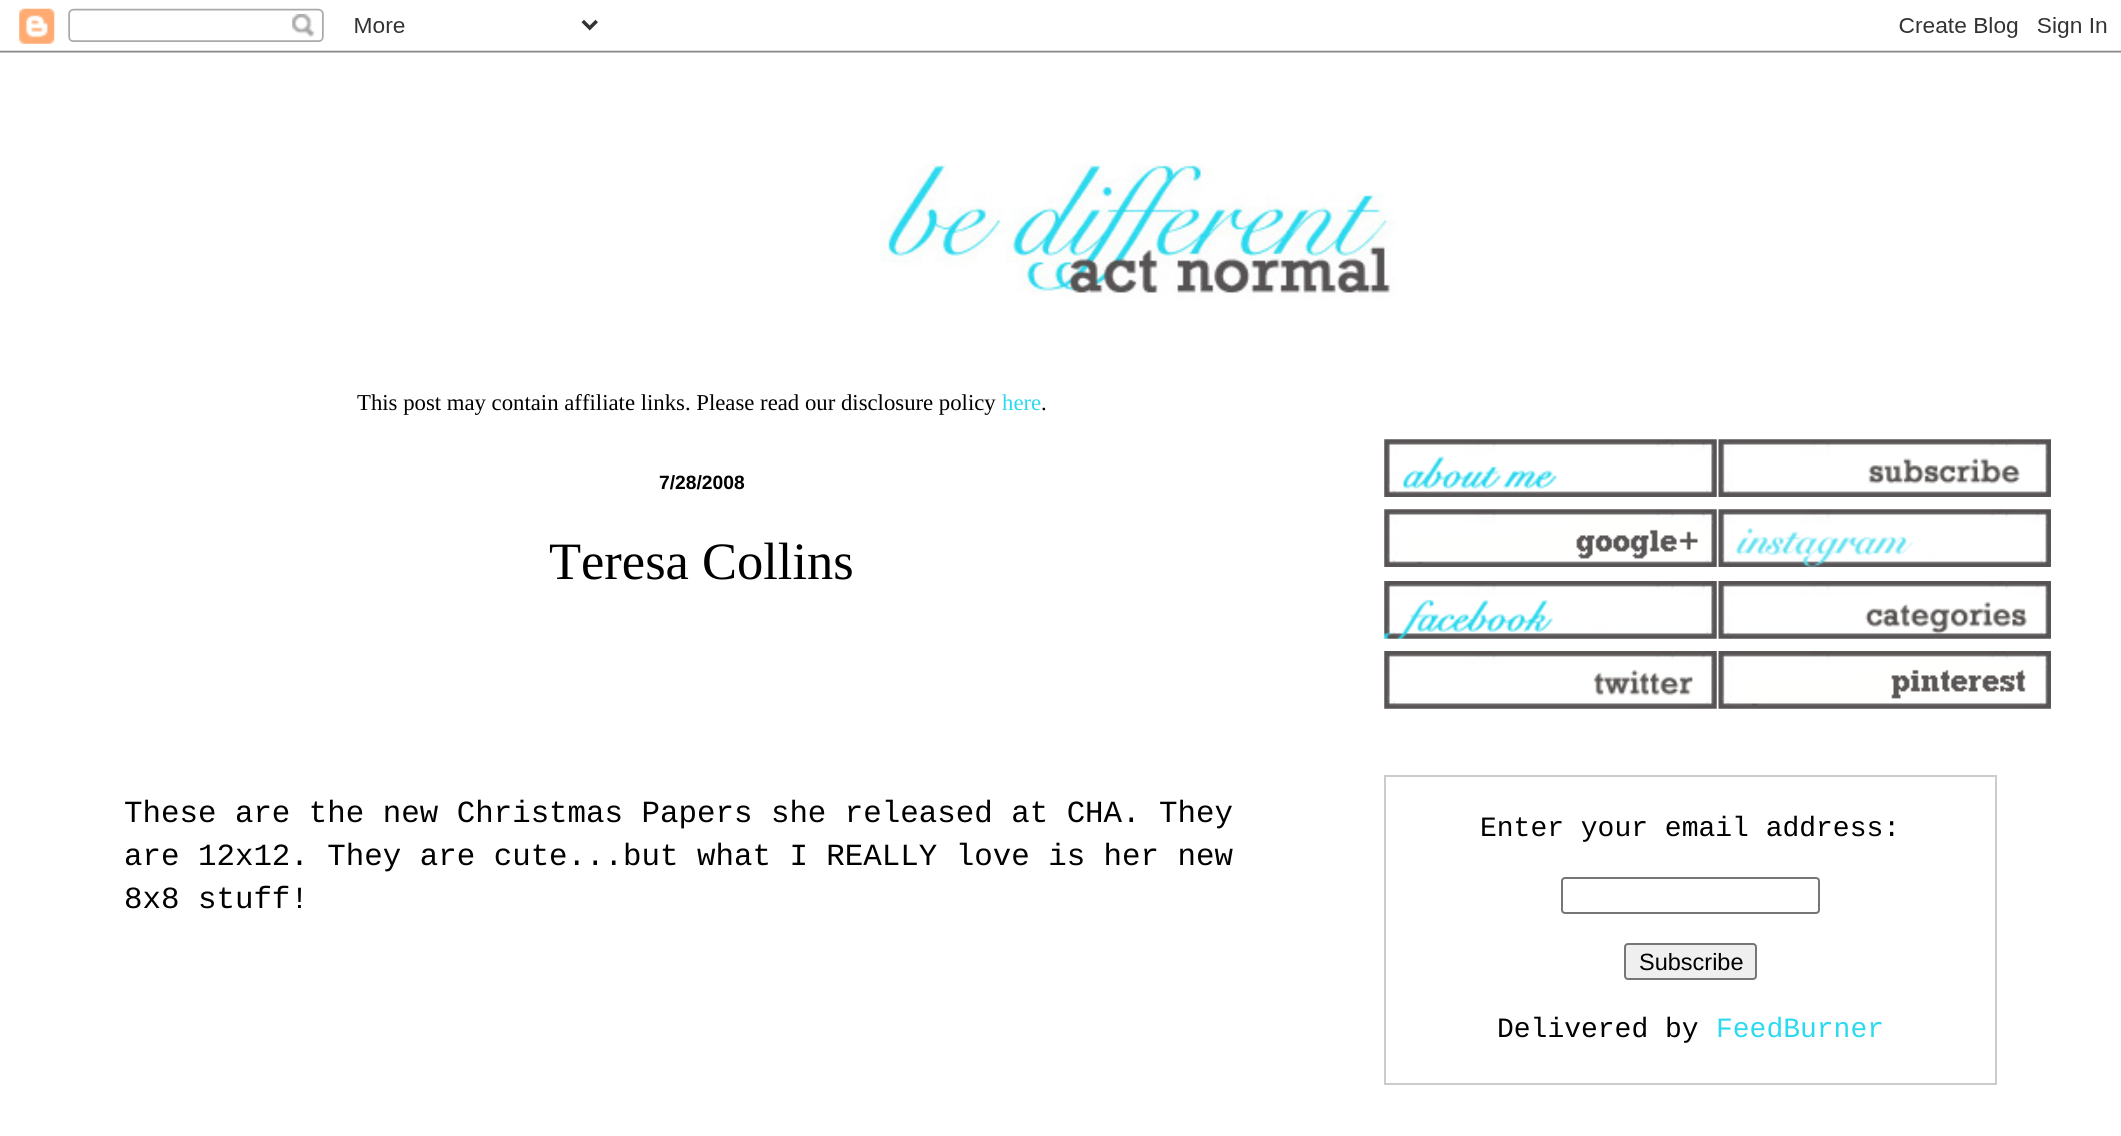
#include <cairo.h>
#include <math.h>
#include <stddef.h>

typedef struct { const char *family; double size; int italic, bold; unsigned color; } style_t;
static cairo_t *ctx;

static void ink(unsigned color) {
    cairo_set_source_rgb(ctx, (color >> 16) / 255.0, (color >> 8 & 255) / 255.0, (color & 255) / 255.0);
}

static void write(double x, double y, const char *s, const style_t *st) {
    cairo_select_font_face(ctx, st->family, st->italic ? CAIRO_FONT_SLANT_ITALIC : CAIRO_FONT_SLANT_NORMAL,
        st->bold ? CAIRO_FONT_WEIGHT_BOLD : CAIRO_FONT_WEIGHT_NORMAL);
    cairo_set_font_size(ctx, st->size);
    ink(st->color);
    cairo_move_to(ctx, x, y);
    cairo_show_text(ctx, s);
}

static void round_path(double x, double y, double w, double h, double r) {
    cairo_new_sub_path(ctx);
    cairo_arc(ctx, x + w - r, y + h - r, r, 0, M_PI / 2);
    cairo_arc(ctx, x + r, y + h - r, r, M_PI / 2, M_PI);
    cairo_arc(ctx, x + r, y + r, r, M_PI, 1.5 * M_PI);
    cairo_arc(ctx, x + w - r, y + r, r, 1.5 * M_PI, 2 * M_PI);
    cairo_close_path(ctx);
}

static void paste(const char *path, double x, double y, double w, double h) {
    cairo_surface_t *image = cairo_image_surface_create_from_png(path);
    cairo_save(ctx);
    cairo_set_source_surface(ctx, image, x, y);
    cairo_rectangle(ctx, x, y, w, h);
    cairo_fill(ctx);
    cairo_restore(ctx);
    cairo_surface_destroy(image);
}

static const style_t s1 = {"Liberation Serif", 22.75, 0, 0, 0x000000};
static const style_t s2 = {"Liberation Serif", 22.75, 0, 0, 0x2dd9ef};
static const style_t s3 = {"Liberation Sans", 19.25, 0, 1, 0x000000};
static const style_t s4 = {"Liberation Serif", 52.5, 0, 0, 0x000000};
static const style_t s5 = {"Liberation Mono", 30.8, 0, 0, 0x000000};
static const style_t s6 = {"Liberation Mono", 28, 0, 0, 0x000000};
static const style_t s7 = {"Liberation Sans", 23.5, 0, 0, 0x000000};
static const style_t s8 = {"Liberation Mono", 28, 0, 0, 0x2dd9ef};

int main(void) {
    cairo_surface_t *surface = cairo_image_surface_create(CAIRO_FORMAT_RGB24, 2121, 1136);
    ctx = cairo_create(surface);
    cairo_font_options_t *options = cairo_font_options_create();
    cairo_font_options_set_hint_metrics(options, CAIRO_HINT_METRICS_OFF);
    cairo_font_options_set_hint_style(options, CAIRO_HINT_STYLE_NONE);
    cairo_set_font_options(ctx, options);
    cairo_set_miter_limit(ctx, 4);
    ink(0xffffff);
    cairo_paint(ctx);
    paste("pic1.png", 0, 8, 2121, 45);
    paste("pic2.png", 880, 163, 516, 136);
    write(357, 410, "This post may contain affiliate links. Please read our disclosure policy", &s1);
    write(1002, 410, "here", &s2);
    write(1041, 410, ".", &s1);
    write(659, 489, "7/28/2008", &s3);
    write(549, 579, "Teresa Collins", &s4);
    write(124, 822, "These are the new Christmas Papers she released at CHA. They", &s5);
    write(124, 865, "are 12x12. They are cute...but what I REALLY love is her new", &s5);
    write(124, 908, "8x8 stuff!", &s5);
    paste("pic3.png", 1384, 439, 333, 58);
    paste("pic4.png", 1384, 509, 333, 58);
    paste("pic5.png", 1384, 581, 333, 58);
    paste("pic6.png", 1384, 651, 333, 58);
    paste("pic7.png", 1718, 439, 333, 58);
    paste("pic8.png", 1718, 509, 333, 58);
    paste("pic9.png", 1718, 581, 333, 58);
    paste("pic10.png", 1718, 651, 333, 58);
    cairo_rectangle(ctx, 1385, 776, 611, 308);
    ink(0xcccccc);
    cairo_stroke(ctx);
    write(1480, 836, "Enter your email address:", &s6);
    round_path(1562, 878, 257, 35, 3);
    ink(0x767676);
    cairo_stroke(ctx);
    ink(0xefefef);
    round_path(1625, 944, 131, 35, 3);
    cairo_fill_preserve(ctx);
    ink(0x767676);
    cairo_stroke(ctx);
    write(1639, 970, "Subscribe", &s7);
    write(1497, 1037, "Delivered by", &s6);
    write(1716, 1037, "FeedBurner", &s8);
    cairo_surface_write_to_png(surface, "screenshot.png");
    cairo_font_options_destroy(options);
    cairo_destroy(ctx);
    cairo_surface_destroy(surface);
    return 0;
}
